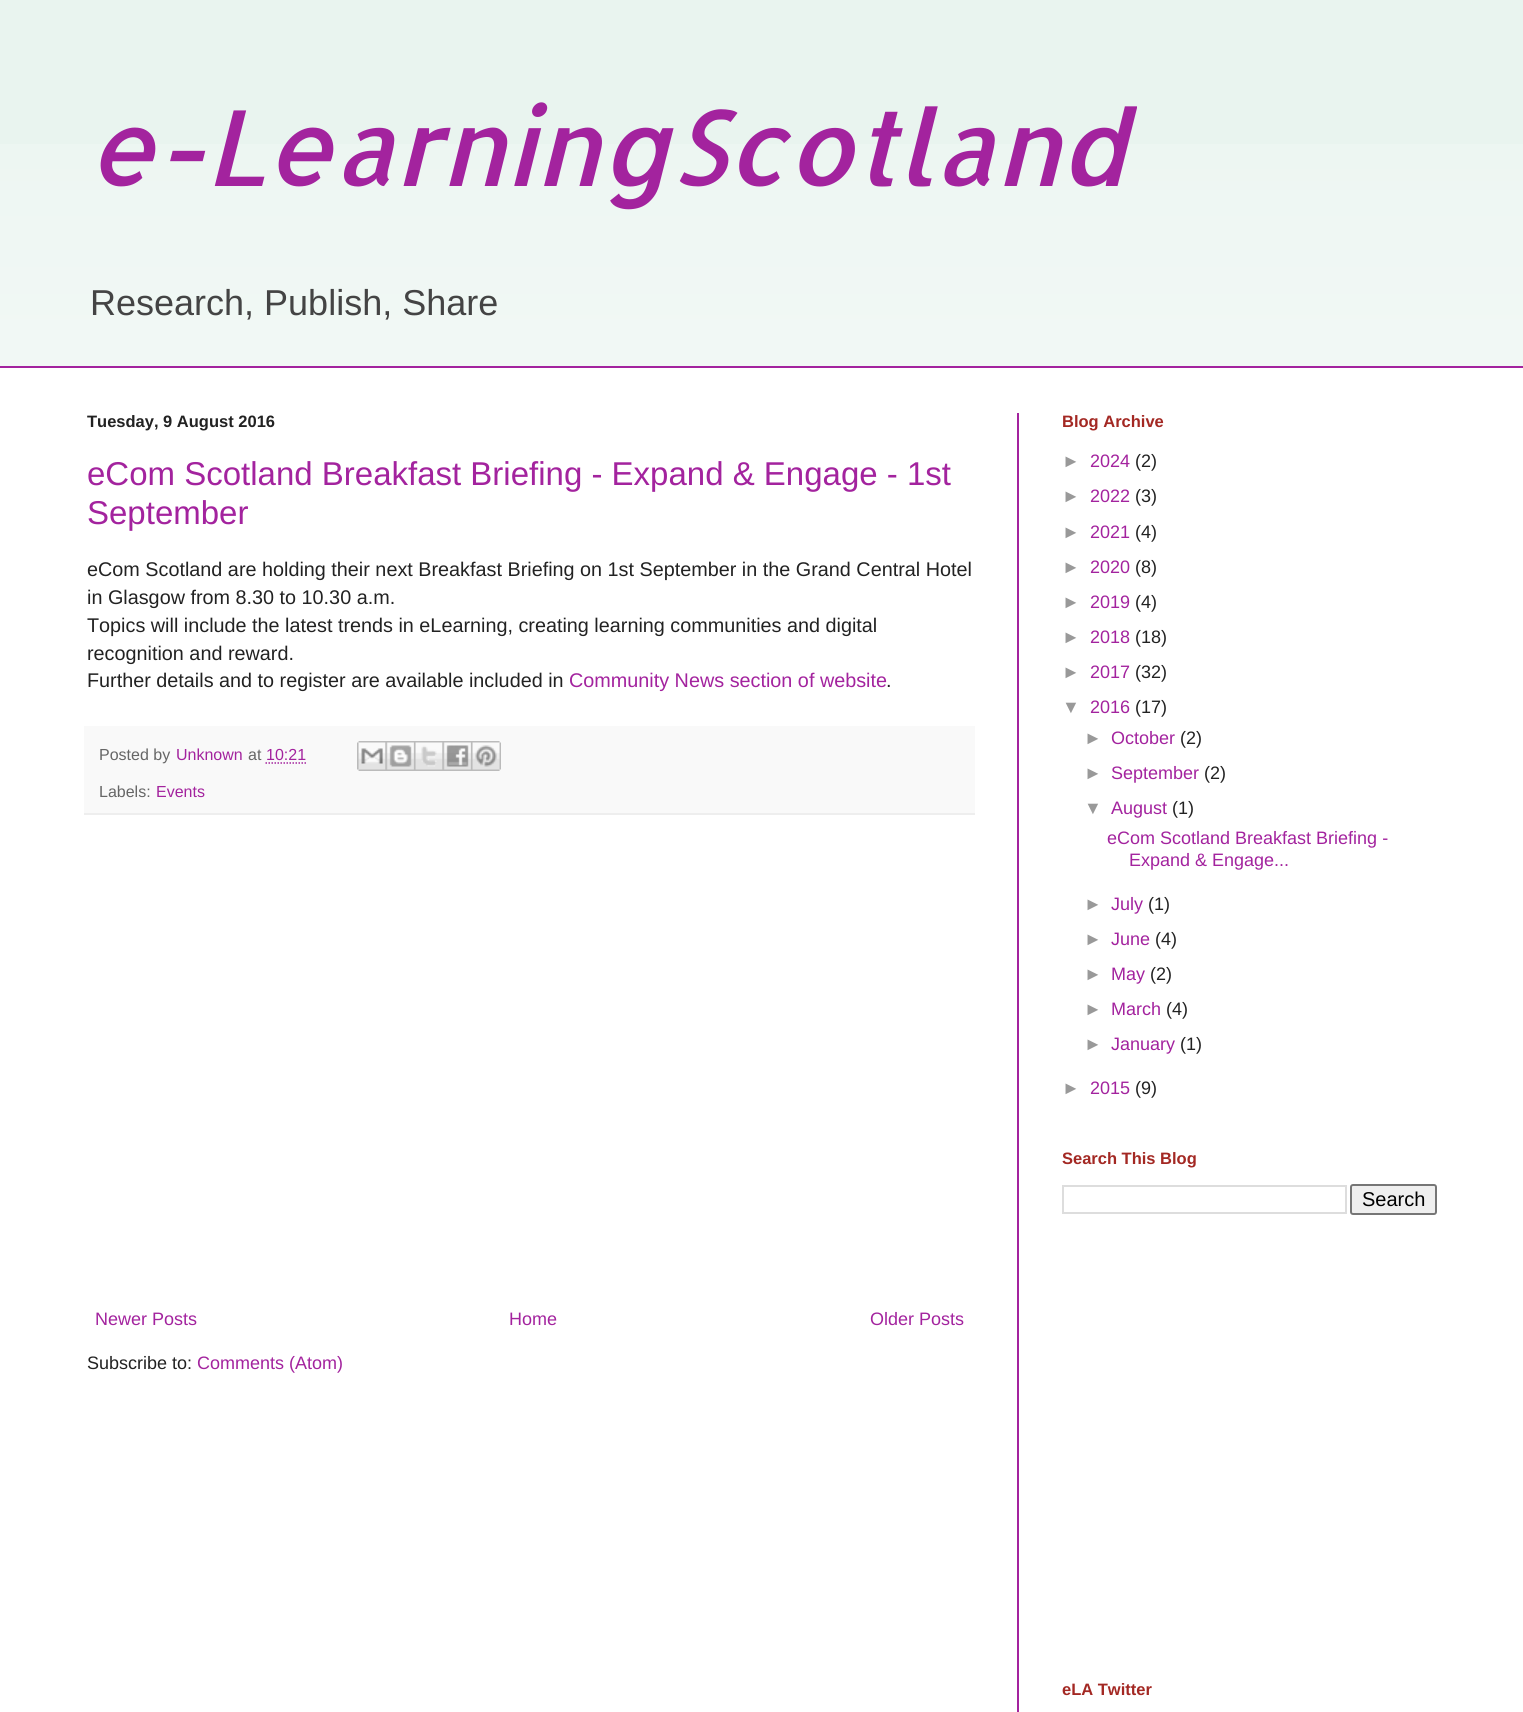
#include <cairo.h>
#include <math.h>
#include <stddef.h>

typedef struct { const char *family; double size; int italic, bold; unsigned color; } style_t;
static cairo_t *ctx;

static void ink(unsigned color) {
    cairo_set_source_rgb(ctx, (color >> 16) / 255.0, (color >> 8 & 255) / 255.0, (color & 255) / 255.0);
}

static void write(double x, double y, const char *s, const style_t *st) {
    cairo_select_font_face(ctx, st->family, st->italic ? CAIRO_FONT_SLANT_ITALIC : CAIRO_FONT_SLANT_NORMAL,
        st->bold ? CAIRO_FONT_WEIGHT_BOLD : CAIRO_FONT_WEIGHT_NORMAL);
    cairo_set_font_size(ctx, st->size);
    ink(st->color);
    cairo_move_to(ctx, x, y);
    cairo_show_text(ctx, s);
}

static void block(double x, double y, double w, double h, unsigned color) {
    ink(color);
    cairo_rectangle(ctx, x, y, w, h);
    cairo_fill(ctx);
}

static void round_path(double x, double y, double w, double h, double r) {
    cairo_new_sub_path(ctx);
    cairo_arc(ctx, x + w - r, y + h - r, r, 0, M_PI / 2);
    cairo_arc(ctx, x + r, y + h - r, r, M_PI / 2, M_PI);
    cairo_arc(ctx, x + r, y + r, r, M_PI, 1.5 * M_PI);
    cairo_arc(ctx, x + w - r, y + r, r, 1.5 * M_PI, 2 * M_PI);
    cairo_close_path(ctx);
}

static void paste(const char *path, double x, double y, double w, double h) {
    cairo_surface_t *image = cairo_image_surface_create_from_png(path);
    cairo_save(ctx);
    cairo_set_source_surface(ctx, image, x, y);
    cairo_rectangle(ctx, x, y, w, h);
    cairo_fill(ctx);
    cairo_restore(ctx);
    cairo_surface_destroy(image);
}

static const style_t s1 = {"Allerta", 105, 1, 0, 0xa3239e};
static const style_t s2 = {"Liberation Sans", 36, 0, 0, 0x444444};
static const style_t s3 = {"Liberation Sans", 16.5, 0, 1, 0x222222};
static const style_t s4 = {"Liberation Sans", 33, 0, 0, 0xa3239e};
static const style_t s5 = {"Liberation Sans", 19.8, 0, 0, 0x222222};
static const style_t s6 = {"Liberation Sans", 19.8, 0, 0, 0xa3239e};
static const style_t s7 = {"Liberation Sans", 16, 0, 0, 0x666666};
static const style_t s8 = {"Liberation Sans", 16, 0, 0, 0xa3239e};
static const style_t s9 = {"Liberation Sans", 18, 0, 0, 0xa3239e};
static const style_t s10 = {"Liberation Sans", 18, 0, 0, 0x222222};
static const style_t s11 = {"Liberation Sans", 16.5, 0, 1, 0xa32823};
static const style_t s12 = {"Liberation Sans", 18, 0, 0, 0x999999};
static const style_t s13 = {"Liberation Sans", 20, 0, 0, 0x000000};

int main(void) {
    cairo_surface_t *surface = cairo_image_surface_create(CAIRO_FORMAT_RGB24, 1523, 1712);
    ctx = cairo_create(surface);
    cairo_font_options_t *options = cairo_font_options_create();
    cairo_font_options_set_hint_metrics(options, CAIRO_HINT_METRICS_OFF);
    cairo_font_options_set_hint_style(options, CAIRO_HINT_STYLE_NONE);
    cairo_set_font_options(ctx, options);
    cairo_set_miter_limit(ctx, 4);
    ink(0xe9f4ef);
    cairo_paint(ctx);
    paste("pic6.png", 0, 144, 1523, 222);
    write(87, 186, "e-LearningScotland", &s1);
    write(90, 315, "Research, Publish, Share", &s2);
    block(0, 368, 1523, 1344, 0xffffff);
    block(0, 366, 1523, 2, 0xa3239e);
    block(1017, 413, 2, 1299, 0xa3239e);
    write(87, 427, "Tuesday, 9 August 2016", &s3);
    write(87, 485, "eCom Scotland Breakfast Briefing - Expand & Engage - 1st", &s4);
    write(87, 524, "September", &s4);
    write(87, 576, "eCom Scotland are holding their next Breakfast Briefing on 1st September in the Grand Central Hotel", &s5);
    write(87, 604, "in Glasgow from 8.30 to 10.30 a.m.", &s5);
    write(87, 632, "Topics will include the latest trends in eLearning, creating learning communities and digital", &s5);
    write(87, 660, "recognition and reward.", &s5);
    write(87, 687, "Further details and to register are available included in", &s5);
    write(569, 687, "Community News section of website", &s6);
    write(886, 687, ".", &s5);
    block(84, 726, 891, 87, 0xf9f9f9);
    block(84, 813, 891, 2, 0xeeeeee);
    write(99, 760, "Posted by", &s7);
    write(176, 760, "Unknown", &s8);
    write(248, 760, "at", &s7);
    write(266, 760, "10:21", &s8);
    cairo_new_path(ctx);
    cairo_move_to(ctx, 265.5, 763);
    cairo_line_to(ctx, 306, 763);
    cairo_set_line_width(ctx, 1.5);
    cairo_set_dash(ctx, (double[]){1.5, 1.5}, 2, 0);
    cairo_stroke(ctx);
    paste("pic1.png", 357, 741, 29, 30);
    paste("pic2.png", 385, 741, 29, 30);
    paste("pic3.png", 414, 741, 29, 30);
    paste("pic4.png", 442, 741, 29, 30);
    paste("pic5.png", 471, 741, 30, 30);
    write(99, 797, "Labels:", &s7);
    write(156, 797, "Events", &s8);
    write(95, 1325, "Newer Posts", &s9);
    write(509, 1325, "Home", &s9);
    write(870, 1325, "Older Posts", &s9);
    write(87, 1369, "Subscribe to:", &s10);
    write(197, 1369, "Comments (Atom)", &s9);
    write(1062, 427, "Blog Archive", &s11);
    write(1062, 467, "►", &s12);
    write(1090, 467, "2024", &s9);
    write(1135, 467, "(2)", &s10);
    write(1062, 502, "►", &s12);
    write(1090, 502, "2022", &s9);
    write(1135, 502, "(3)", &s10);
    write(1062, 538, "►", &s12);
    write(1090, 538, "2021", &s9);
    write(1135, 538, "(4)", &s10);
    write(1062, 573, "►", &s12);
    write(1090, 573, "2020", &s9);
    write(1135, 573, "(8)", &s10);
    write(1062, 608, "►", &s12);
    write(1090, 608, "2019", &s9);
    write(1135, 608, "(4)", &s10);
    write(1062, 643, "►", &s12);
    write(1090, 643, "2018", &s9);
    write(1135, 643, "(18)", &s10);
    write(1062, 678, "►", &s12);
    write(1090, 678, "2017", &s9);
    write(1135, 678, "(32)", &s10);
    write(1062, 713, "▼", &s12);
    write(1090, 713, "2016", &s9);
    write(1135, 713, "(17)", &s10);
    write(1084, 744, "►", &s12);
    write(1111, 744, "October", &s9);
    write(1180, 744, "(2)", &s10);
    write(1084, 779, "►", &s12);
    write(1111, 779, "September", &s9);
    write(1204, 779, "(2)", &s10);
    write(1084, 814, "▼", &s12);
    write(1111, 814, "August", &s9);
    write(1172, 814, "(1)", &s10);
    write(1107, 844, "eCom Scotland Breakfast Briefing -", &s9);
    write(1129, 866, "Expand & Engage...", &s9);
    write(1084, 910, "►", &s12);
    write(1111, 910, "July", &s9);
    write(1148, 910, "(1)", &s10);
    write(1084, 945, "►", &s12);
    write(1111, 945, "June", &s9);
    write(1155, 945, "(4)", &s10);
    write(1084, 980, "►", &s12);
    write(1111, 980, "May", &s9);
    write(1150, 980, "(2)", &s10);
    write(1084, 1015, "►", &s12);
    write(1111, 1015, "March", &s9);
    write(1166, 1015, "(4)", &s10);
    write(1084, 1050, "►", &s12);
    write(1111, 1050, "January", &s9);
    write(1180, 1050, "(1)", &s10);
    write(1062, 1094, "►", &s12);
    write(1090, 1094, "2015", &s9);
    write(1135, 1094, "(9)", &s10);
    write(1062, 1164, "Search This Blog", &s11);
    cairo_rectangle(ctx, 1063, 1186, 283, 27);
    ink(0xdddddd);
    cairo_set_line_width(ctx, 2);
    cairo_set_dash(ctx, NULL, 0, 0);
    cairo_stroke(ctx);
    ink(0xefefef);
    round_path(1351, 1185, 85, 29, 2);
    cairo_fill_preserve(ctx);
    ink(0x767676);
    cairo_stroke(ctx);
    write(1362, 1206, "Search", &s13);
    write(1062, 1695, "eLA Twitter", &s11);
    cairo_surface_write_to_png(surface, "screenshot.png");
    cairo_font_options_destroy(options);
    cairo_destroy(ctx);
    cairo_surface_destroy(surface);
    return 0;
}
